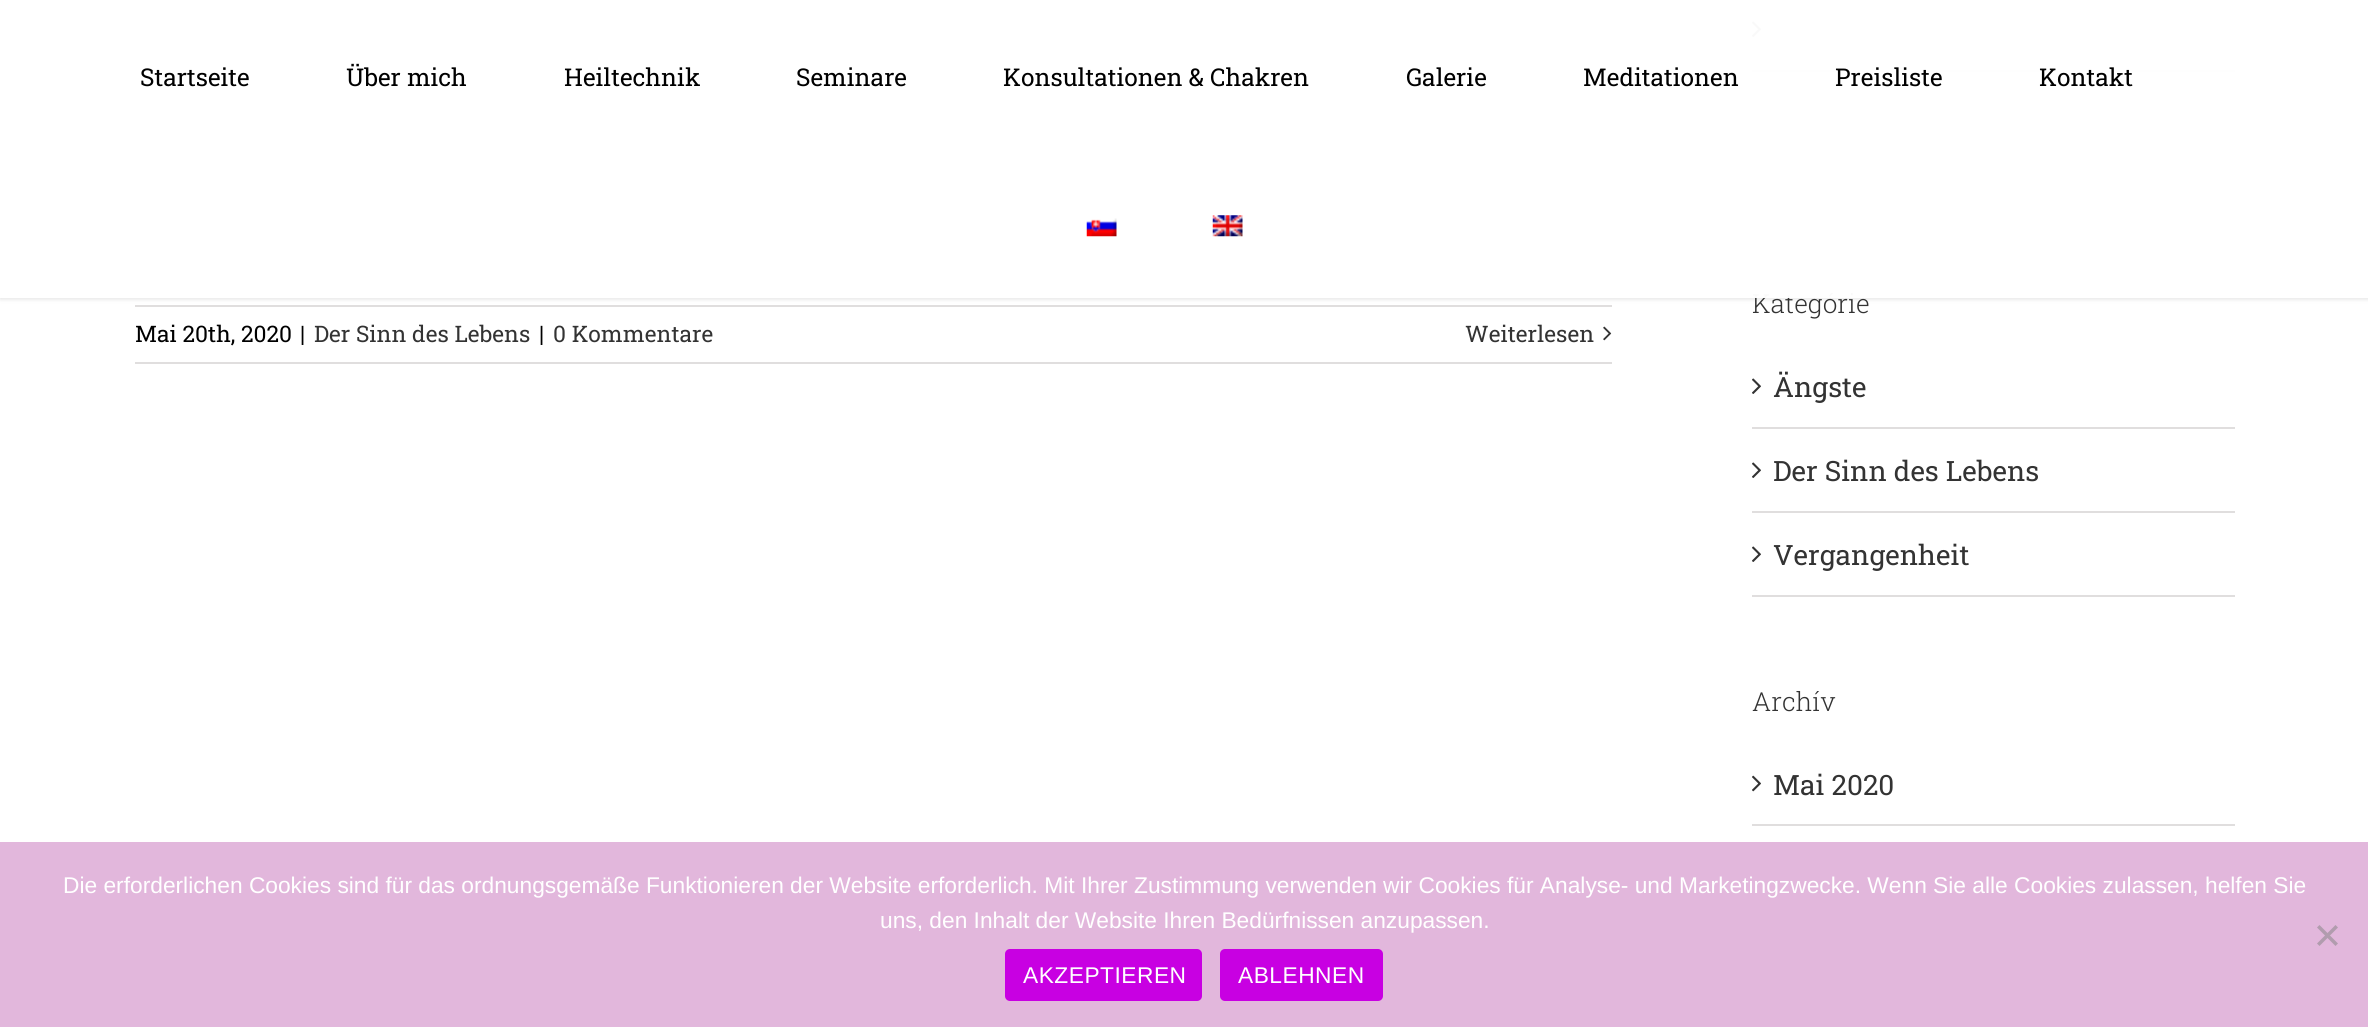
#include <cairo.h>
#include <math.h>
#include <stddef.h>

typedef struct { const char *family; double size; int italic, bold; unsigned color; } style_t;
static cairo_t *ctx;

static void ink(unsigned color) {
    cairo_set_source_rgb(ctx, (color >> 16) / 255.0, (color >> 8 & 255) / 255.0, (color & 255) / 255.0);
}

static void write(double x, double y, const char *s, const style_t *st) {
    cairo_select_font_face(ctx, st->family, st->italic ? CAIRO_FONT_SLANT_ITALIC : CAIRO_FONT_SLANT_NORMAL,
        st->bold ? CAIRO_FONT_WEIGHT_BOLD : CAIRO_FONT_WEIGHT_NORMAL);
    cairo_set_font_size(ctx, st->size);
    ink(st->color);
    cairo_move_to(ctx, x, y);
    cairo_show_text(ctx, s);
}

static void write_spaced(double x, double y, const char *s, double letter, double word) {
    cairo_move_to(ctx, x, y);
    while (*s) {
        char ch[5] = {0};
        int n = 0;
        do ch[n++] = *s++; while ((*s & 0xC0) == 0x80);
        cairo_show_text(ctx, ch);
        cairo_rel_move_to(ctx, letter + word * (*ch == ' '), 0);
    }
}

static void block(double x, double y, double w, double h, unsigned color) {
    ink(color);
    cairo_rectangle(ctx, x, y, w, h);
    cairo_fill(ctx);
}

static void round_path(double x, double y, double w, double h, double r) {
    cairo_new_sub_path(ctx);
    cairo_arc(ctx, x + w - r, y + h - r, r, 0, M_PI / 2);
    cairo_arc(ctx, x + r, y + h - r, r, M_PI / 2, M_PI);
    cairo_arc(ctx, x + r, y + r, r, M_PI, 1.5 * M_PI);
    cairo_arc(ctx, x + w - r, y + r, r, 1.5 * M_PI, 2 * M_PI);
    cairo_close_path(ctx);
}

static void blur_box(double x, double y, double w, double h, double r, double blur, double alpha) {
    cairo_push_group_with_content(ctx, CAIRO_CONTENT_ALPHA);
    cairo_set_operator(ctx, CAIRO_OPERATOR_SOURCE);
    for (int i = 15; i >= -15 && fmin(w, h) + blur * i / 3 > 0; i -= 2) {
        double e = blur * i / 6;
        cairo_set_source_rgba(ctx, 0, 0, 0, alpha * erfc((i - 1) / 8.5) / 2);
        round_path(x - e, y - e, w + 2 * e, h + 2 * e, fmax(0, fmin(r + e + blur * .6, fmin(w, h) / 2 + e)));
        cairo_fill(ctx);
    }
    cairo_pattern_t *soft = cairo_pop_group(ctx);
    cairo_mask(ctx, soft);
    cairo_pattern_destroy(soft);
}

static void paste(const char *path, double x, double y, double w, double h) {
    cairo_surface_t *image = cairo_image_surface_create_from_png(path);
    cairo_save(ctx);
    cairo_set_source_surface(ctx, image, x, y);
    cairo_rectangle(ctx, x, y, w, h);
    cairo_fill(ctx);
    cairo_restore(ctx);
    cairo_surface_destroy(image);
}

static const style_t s1 = {"Roboto Slab Light", 26.25, 0, 0, 0x333333};
static const style_t s2 = {"Roboto Slab", 24.5, 0, 0, 0x000000};
static const style_t s3 = {"Roboto Slab", 22.75, 0, 0, 0x000000};
static const style_t s4 = {"Roboto Slab", 22.75, 0, 0, 0x333333};
static const style_t s5 = {"Roboto Slab", 28, 0, 0, 0x333333};
static const style_t s6 = {"Liberation Sans", 22.75, 0, 0, 0xffffff};

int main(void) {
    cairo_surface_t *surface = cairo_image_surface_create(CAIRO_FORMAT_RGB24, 2368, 1027);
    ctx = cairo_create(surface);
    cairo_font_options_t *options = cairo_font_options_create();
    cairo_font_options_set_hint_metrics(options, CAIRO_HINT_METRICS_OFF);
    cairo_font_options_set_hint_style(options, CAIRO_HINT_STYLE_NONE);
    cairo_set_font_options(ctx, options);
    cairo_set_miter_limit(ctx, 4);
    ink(0xffffff);
    cairo_paint(ctx);
    block(135, 305, 1477, 2, 0xe0dede);
    block(1752, 70, 483, 2, 0xe0dede);
    paste("pic4.png", 1752, 21, 9, 16);
    cairo_save(ctx);
    cairo_set_fill_rule(ctx, CAIRO_FILL_RULE_EVEN_ODD);
    cairo_new_path(ctx);
    cairo_move_to(ctx, 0, 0);
    cairo_line_to(ctx, 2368, 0);
    cairo_line_to(ctx, 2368, 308);
    cairo_line_to(ctx, 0, 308);
    cairo_close_path(ctx);
    cairo_move_to(ctx, 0, 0);
    cairo_line_to(ctx, 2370, 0);
    cairo_line_to(ctx, 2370, 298);
    cairo_line_to(ctx, 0, 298);
    cairo_close_path(ctx);
    cairo_clip(ctx);
    ink(0x000000);
    blur_box(0, 2, 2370, 297, 0, 2.5, 0.12);
    cairo_restore(ctx);
    write(1752, 313, "Kategórie", &s1);
    cairo_set_source_rgba(ctx, 1, 1, 1, 0.97);
    cairo_rectangle(ctx, 0, 21, 2368, 277);
    cairo_fill(ctx);
    write(140, 86, "Startseite", &s2);
    write(346, 86, "Über mich", &s2);
    write(564, 86, "Heiltechnik", &s2);
    write(796, 86, "Seminare", &s2);
    write(1003, 86, "Konsultationen & Chakren", &s2);
    write(1406, 86, "Galerie", &s2);
    write(1583, 86, "Meditationen", &s2);
    write(1835, 86, "Preisliste", &s2);
    write(2039, 86, "Kontakt", &s2);
    paste("pic1.png", 1086, 218, 31, 19);
    paste("pic2.png", 1212, 215, 31, 22);
    block(135, 362, 1477, 2, 0xe0dede);
    write(135, 342, "Mai 20th, 2020", &s3);
    write(300, 342, "|", &s3);
    write(314, 342, "Der Sinn des Lebens", &s4);
    write(539, 342, "|", &s3);
    write(553, 342, "0 Kommentare", &s4);
    write(1465, 342, "Weiterlesen", &s4);
    paste("pic3.png", 1603, 326, 9, 15);
    block(1752, 427, 483, 2, 0xe0dede);
    paste("pic4.png", 1752, 378, 9, 16);
    write(1773, 397, "Ängste", &s5);
    block(1752, 511, 483, 2, 0xe0dede);
    paste("pic4.png", 1752, 462, 9, 16);
    write(1773, 481, "Der Sinn des Lebens", &s5);
    block(1752, 595, 483, 2, 0xe0dede);
    paste("pic4.png", 1752, 546, 9, 16);
    write(1773, 565, "Vergangenheit", &s5);
    write(1752, 711, "Archív", &s1);
    block(1752, 824, 483, 2, 0xe0dede);
    paste("pic5.png", 1752, 775, 9, 17);
    write(1773, 795, "Mai 2020", &s5);
    block(0, 842, 2368, 185, 0xe2b7dc);
    write(63, 893, "Die erforderlichen Cookies sind für das ordnungsgemäße Funktionieren der Website erforderlich. Mit Ihrer Zustimmung verwenden wir Cookies für Analyse- und Marketingzwecke. Wenn Sie alle Cookies zulassen, helfen Sie", &s6);
    write(880, 928, "uns, den Inhalt der Website Ihren Bedürfnissen anzupassen.", &s6);
    ink(0xb19cae);
    cairo_new_path(ctx);
    cairo_move_to(ctx, 2335.5, 925);
    cairo_line_to(ctx, 2338, 927.5);
    cairo_line_to(ctx, 2319.5, 946);
    cairo_line_to(ctx, 2317, 943.5);
    cairo_close_path(ctx);
    cairo_fill(ctx);
    cairo_new_path(ctx);
    cairo_move_to(ctx, 2317, 927.5);
    cairo_line_to(ctx, 2319.5, 925);
    cairo_line_to(ctx, 2338, 943.5);
    cairo_line_to(ctx, 2335.5, 946);
    cairo_close_path(ctx);
    cairo_fill(ctx);
    ink(0xc800e2);
    round_path(1005, 949, 197, 52, 5);
    cairo_fill(ctx);
    ink(0xffffff);
    write_spaced(1023, 983, "AKZEPTIEREN", 0.5, 0);
    ink(0xc800e2);
    round_path(1220, 949, 163, 52, 5);
    cairo_fill(ctx);
    ink(0xffffff);
    write_spaced(1238, 983, "ABLEHNEN", 0.5, 0);
    cairo_surface_write_to_png(surface, "screenshot.png");
    cairo_font_options_destroy(options);
    cairo_destroy(ctx);
    cairo_surface_destroy(surface);
    return 0;
}
